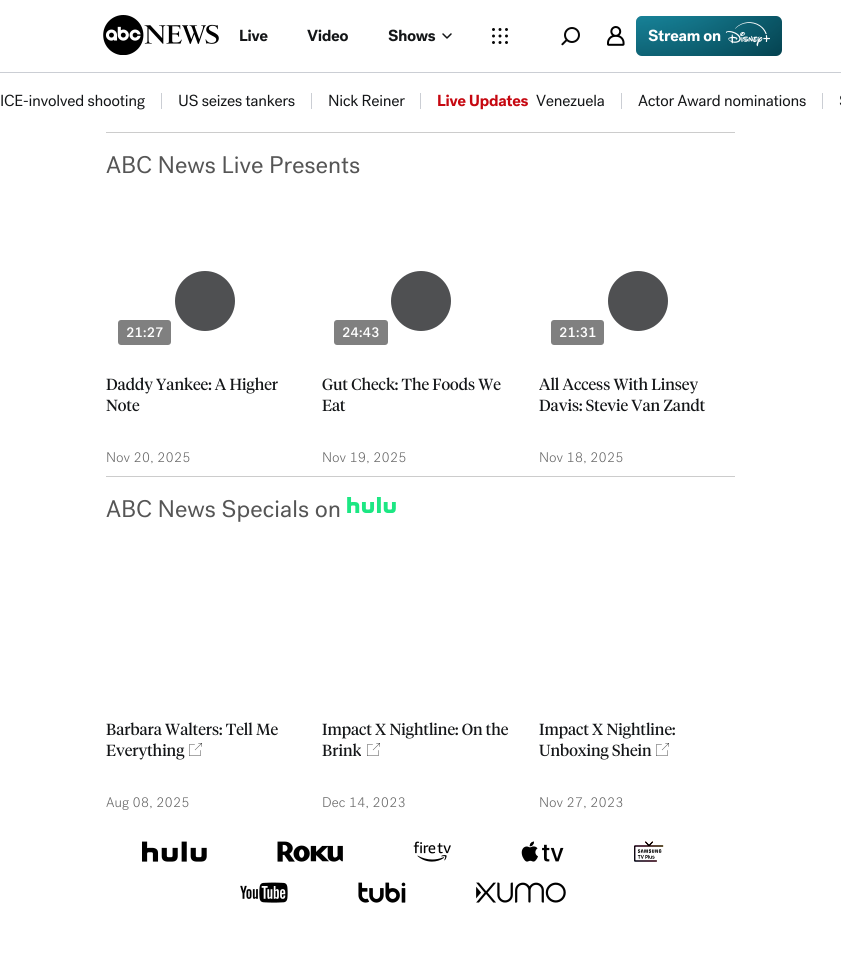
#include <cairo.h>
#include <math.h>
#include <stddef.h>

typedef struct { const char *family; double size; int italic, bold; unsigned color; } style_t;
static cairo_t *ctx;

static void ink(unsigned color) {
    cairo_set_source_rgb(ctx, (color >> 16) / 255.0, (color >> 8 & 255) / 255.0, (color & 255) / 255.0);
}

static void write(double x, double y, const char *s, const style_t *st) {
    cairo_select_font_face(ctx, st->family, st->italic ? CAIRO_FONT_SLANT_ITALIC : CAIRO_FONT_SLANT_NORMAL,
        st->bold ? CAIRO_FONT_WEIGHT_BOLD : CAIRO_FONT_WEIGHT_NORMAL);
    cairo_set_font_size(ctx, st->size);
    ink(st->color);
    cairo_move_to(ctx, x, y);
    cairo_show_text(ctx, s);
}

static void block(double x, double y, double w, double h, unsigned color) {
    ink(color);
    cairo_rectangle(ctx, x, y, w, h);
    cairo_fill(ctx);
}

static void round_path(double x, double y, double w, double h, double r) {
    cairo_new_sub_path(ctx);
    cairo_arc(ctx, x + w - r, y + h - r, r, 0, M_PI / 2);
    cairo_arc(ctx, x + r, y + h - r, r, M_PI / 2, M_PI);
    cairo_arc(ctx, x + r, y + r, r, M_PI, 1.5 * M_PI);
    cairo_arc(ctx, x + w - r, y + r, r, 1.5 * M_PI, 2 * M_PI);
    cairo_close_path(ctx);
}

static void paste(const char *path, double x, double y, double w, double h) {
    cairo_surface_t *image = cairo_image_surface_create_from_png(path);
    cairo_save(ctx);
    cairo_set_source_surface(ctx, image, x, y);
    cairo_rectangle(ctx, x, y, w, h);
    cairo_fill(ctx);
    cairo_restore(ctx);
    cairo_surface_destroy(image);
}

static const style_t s1 = {"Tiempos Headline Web", 16, 0, 0, 0x141618};

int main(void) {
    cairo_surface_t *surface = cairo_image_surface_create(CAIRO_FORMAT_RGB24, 841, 974);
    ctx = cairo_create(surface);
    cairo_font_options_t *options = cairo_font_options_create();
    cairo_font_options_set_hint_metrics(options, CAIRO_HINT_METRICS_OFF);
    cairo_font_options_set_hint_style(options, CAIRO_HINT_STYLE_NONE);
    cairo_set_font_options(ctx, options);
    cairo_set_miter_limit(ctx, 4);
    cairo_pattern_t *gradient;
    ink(0xffffff);
    cairo_paint(ctx);
    paste("pic1.png", 103, 15, 116, 40);
    paste("pic2.png", 240, 29, 28, 13);
    paste("pic3.png", 307, 29, 41, 13);
    paste("pic4.png", 388, 29, 48, 13);
    paste("pic5.png", 442, 33, 10, 6);
    paste("pic6.png", 492, 28, 16, 16);
    paste("pic7.png", 561, 27, 19, 19);
    paste("pic8.png", 607, 26, 18, 20);
    ink(0x054553);
    round_path(636, 16, 146, 40, 6);
    cairo_fill(ctx);
    gradient = cairo_pattern_create_radial(0, 0, 0, 0, 0, 1);
    cairo_pattern_set_matrix(gradient, &(cairo_matrix_t){1.0 / 219, 0, 0, 1.0 / 140, -1.0 * 621 / 219, -1.0 * -44 / 140});
    cairo_pattern_add_color_stop_rgba(gradient, 0, 0.2, 0.867, 1, 0.7);
    cairo_pattern_add_color_stop_rgba(gradient, 1, 0.2, 0.867, 1, 0);
    cairo_set_source(ctx, gradient);
    cairo_pattern_destroy(gradient);
    round_path(636, 16, 146, 40, 6);
    cairo_fill(ctx);
    paste("pic9.png", 648, 29, 73, 13);
    paste("pic10.png", 725, 22, 45, 25);
    block(0, 72, 841, 1, 0xcbced4);
    paste("pic11.png", 1, 94, 144, 16);
    block(161, 93, 1, 16, 0xcbced4);
    paste("pic12.png", 179, 94, 116, 13);
    block(311, 93, 1, 16, 0xcbced4);
    paste("pic13.png", 329, 94, 76, 13);
    block(420, 93, 1, 16, 0xcbced4);
    paste("pic14.png", 438, 94, 90, 16);
    paste("pic15.png", 536, 94, 68, 13);
    block(621, 93, 1, 16, 0xcbced4);
    paste("pic16.png", 638, 94, 168, 13);
    block(822, 93, 1, 16, 0xcbced4);
    paste("pic17.png", 839, 95, 2, 11);
    block(106, 132, 629, 1, 0xcccccc);
    paste("pic18.png", 106, 155, 254, 19);
    ink(0x808080);
    round_path(118, 320, 53, 25, 3);
    cairo_fill(ctx);
    paste("pic19.png", 127, 327, 36, 11);
    ink(0x4f5052);
    cairo_arc(ctx, 205, 301, 30, 0, 2 * M_PI);
    cairo_fill(ctx);
    write(106, 390, "Daddy Yankee: A Higher", &s1);
    write(106, 411, "Note", &s1);
    paste("pic20.png", 107, 452, 83, 12);
    ink(0x808080);
    round_path(334, 320, 54, 25, 3);
    cairo_fill(ctx);
    paste("pic21.png", 343, 327, 36, 11);
    ink(0x4f5052);
    cairo_arc(ctx, 421, 301, 30, 0, 2 * M_PI);
    cairo_fill(ctx);
    write(322, 390, "Gut Check: The Foods We", &s1);
    write(322, 411, "Eat", &s1);
    paste("pic22.png", 323, 452, 83, 12);
    ink(0x808080);
    round_path(551, 320, 53, 25, 3);
    cairo_fill(ctx);
    paste("pic23.png", 560, 327, 36, 11);
    ink(0x4f5052);
    cairo_arc(ctx, 638, 301, 30, 0, 2 * M_PI);
    cairo_fill(ctx);
    write(539, 390, "All Access With Linsey", &s1);
    write(539, 411, "Davis: Stevie Van Zandt", &s1);
    paste("pic24.png", 540, 452, 83, 12);
    block(106, 476, 629, 1, 0xcccccc);
    paste("pic25.png", 106, 499, 234, 23);
    paste("pic26.png", 347, 497, 49, 16);
    write(106, 735, "Barbara Walters: Tell Me", &s1);
    write(106, 756, "Everything", &s1);
    paste("pic27.png", 189, 743, 13, 13);
    paste("pic28.png", 106, 797, 83, 13);
    write(322, 735, "Impact X Nightline: On the", &s1);
    write(322, 756, "Brink", &s1);
    paste("pic27.png", 367, 743, 13, 13);
    paste("pic29.png", 323, 797, 82, 12);
    write(539, 735, "Impact X Nightline:", &s1);
    write(539, 756, "Unboxing Shein", &s1);
    paste("pic27.png", 656, 743, 13, 13);
    paste("pic30.png", 540, 797, 83, 12);
    paste("pic31.png", 142, 841, 65, 21);
    paste("pic32.png", 277, 841, 66, 21);
    paste("pic33.png", 413, 841, 38, 21);
    paste("pic34.png", 521, 841, 43, 21);
    paste("pic35.png", 634, 841, 30, 21);
    paste("pic36.png", 240, 882, 48, 21);
    paste("pic37.png", 358, 882, 48, 21);
    paste("pic38.png", 476, 882, 90, 21);
    cairo_surface_write_to_png(surface, "screenshot.png");
    cairo_font_options_destroy(options);
    cairo_destroy(ctx);
    cairo_surface_destroy(surface);
    return 0;
}
